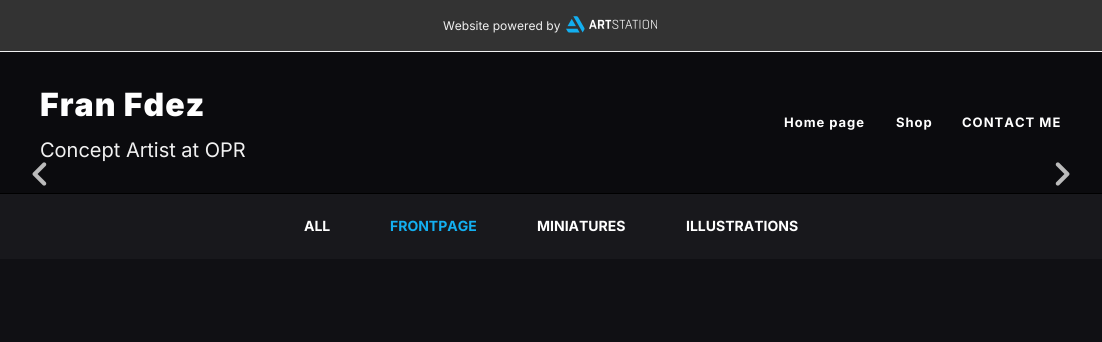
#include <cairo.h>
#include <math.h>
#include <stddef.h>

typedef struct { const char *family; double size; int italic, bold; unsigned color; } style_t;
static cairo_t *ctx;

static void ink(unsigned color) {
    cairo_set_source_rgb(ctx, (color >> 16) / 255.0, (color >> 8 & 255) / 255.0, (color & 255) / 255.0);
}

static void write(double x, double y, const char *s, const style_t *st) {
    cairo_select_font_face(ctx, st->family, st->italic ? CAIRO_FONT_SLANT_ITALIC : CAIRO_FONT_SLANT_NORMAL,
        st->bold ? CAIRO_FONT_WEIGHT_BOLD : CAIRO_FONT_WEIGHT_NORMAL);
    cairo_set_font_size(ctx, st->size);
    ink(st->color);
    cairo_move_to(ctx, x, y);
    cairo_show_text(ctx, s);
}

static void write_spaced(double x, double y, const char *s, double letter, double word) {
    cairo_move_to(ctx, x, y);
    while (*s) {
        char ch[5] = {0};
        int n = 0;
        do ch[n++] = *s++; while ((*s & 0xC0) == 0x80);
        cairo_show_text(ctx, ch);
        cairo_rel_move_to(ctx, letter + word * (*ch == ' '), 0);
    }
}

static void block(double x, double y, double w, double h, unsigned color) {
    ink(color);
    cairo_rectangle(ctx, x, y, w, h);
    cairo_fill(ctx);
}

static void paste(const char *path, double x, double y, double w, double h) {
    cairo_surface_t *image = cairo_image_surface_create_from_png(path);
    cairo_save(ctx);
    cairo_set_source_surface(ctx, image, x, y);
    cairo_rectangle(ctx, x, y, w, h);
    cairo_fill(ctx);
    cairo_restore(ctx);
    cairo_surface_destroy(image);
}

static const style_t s1 = {"Inter", 12, 0, 0, 0xf1f1f1};
static const style_t s2 = {"Inter", 20, 0, 0, 0xf1f1f1};
static const style_t s3 = {"Inter", 14, 0, 1, 0xffffff};
static const style_t s4 = {"Inter", 14, 0, 1, 0x13aff0};

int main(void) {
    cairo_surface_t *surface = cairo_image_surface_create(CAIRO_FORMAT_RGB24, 1102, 342);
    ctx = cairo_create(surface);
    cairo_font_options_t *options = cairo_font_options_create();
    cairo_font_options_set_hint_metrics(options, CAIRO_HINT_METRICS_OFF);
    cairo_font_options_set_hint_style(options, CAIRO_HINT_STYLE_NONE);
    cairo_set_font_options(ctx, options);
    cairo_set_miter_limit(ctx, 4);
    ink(0x101014);
    cairo_paint(ctx);
    block(0, 0, 1102, 51, 0x333333);
    block(0, 51, 1102, 1, 0xf1f1f1);
    write(443, 30, "Website powered by", &s1);
    paste("pic1.png", 566, 16, 91, 17);
    block(0, 52, 1102, 141, 0x0b0b0e);
    block(0, 193, 1102, 1, 0x000000);
    cairo_select_font_face(ctx, "Inter Black", CAIRO_FONT_SLANT_NORMAL, CAIRO_FONT_WEIGHT_NORMAL);
    cairo_set_font_size(ctx, 32);
    ink(0xffffff);
    write_spaced(40, 116, "Fran Fdez", 1, 0);
    write(40, 157, "Concept Artist at OPR", &s2);
    cairo_select_font_face(ctx, "Inter", CAIRO_FONT_SLANT_NORMAL, CAIRO_FONT_WEIGHT_BOLD);
    cairo_set_font_size(ctx, 13);
    ink(0xffffff);
    write_spaced(784, 127, "Home page", 1, 0);
    write_spaced(896, 127, "Shop", 1, 0);
    write_spaced(962, 127, "CONTACT ME", 1, 0);
    paste("pic2.png", 32, 162, 15, 24);
    paste("pic3.png", 1055, 162, 15, 24);
    block(0, 194, 1102, 65, 0x18181c);
    write(304, 231, "ALL", &s3);
    write(390, 231, "FRONTPAGE", &s4);
    write(537, 231, "MINIATURES", &s3);
    write(686, 231, "ILLUSTRATIONS", &s3);
    cairo_surface_write_to_png(surface, "screenshot.png");
    cairo_font_options_destroy(options);
    cairo_destroy(ctx);
    cairo_surface_destroy(surface);
    return 0;
}
